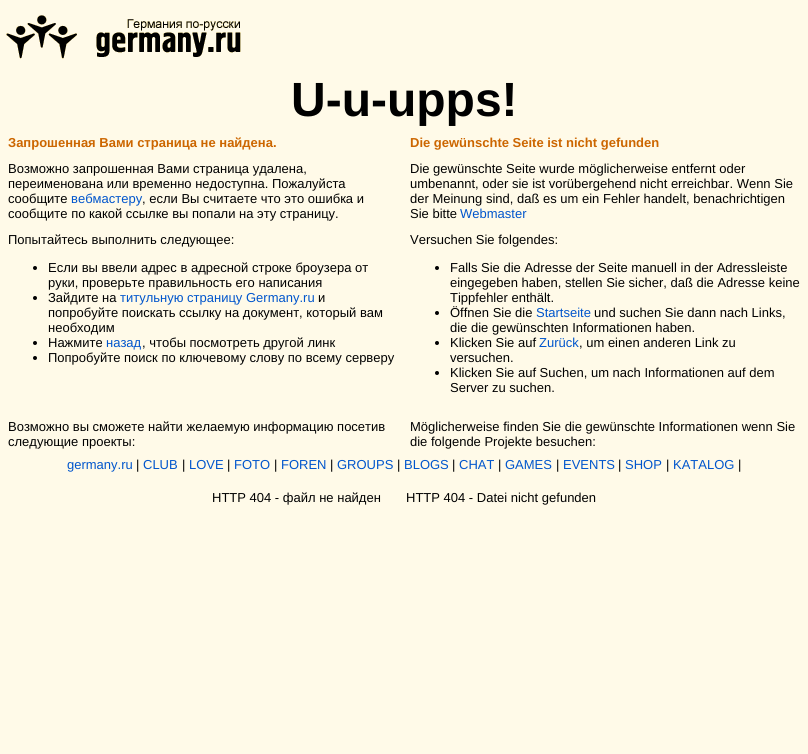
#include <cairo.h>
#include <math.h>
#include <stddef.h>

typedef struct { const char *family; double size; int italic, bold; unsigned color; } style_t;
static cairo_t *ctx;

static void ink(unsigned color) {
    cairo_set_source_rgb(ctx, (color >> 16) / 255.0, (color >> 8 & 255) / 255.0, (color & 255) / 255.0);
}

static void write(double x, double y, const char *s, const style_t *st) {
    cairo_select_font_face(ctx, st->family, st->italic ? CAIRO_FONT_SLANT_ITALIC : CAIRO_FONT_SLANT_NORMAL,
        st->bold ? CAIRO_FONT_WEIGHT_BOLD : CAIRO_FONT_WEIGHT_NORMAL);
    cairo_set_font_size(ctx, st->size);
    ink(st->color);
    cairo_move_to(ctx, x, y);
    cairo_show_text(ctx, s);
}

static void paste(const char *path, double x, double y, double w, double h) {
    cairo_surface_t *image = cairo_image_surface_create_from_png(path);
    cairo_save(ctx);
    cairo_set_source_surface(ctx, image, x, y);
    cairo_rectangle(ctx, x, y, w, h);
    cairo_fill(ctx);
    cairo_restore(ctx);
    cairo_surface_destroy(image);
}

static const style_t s1 = {"Liberation Sans", 48, 0, 1, 0x000000};
static const style_t s2 = {"Liberation Sans", 13, 0, 1, 0xcc6600};
static const style_t s3 = {"Liberation Sans", 13, 0, 0, 0x000000};
static const style_t s4 = {"Liberation Sans", 13, 0, 0, 0x0055cc};

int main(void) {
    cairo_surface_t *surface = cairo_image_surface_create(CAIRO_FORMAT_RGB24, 808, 754);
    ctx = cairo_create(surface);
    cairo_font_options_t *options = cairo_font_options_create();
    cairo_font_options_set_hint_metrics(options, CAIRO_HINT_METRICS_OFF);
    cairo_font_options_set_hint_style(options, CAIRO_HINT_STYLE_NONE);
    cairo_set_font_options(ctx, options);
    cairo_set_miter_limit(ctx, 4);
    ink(0xfffae8);
    cairo_paint(ctx);
    paste("pic1.png", 6, 15, 71, 44);
    paste("pic2.png", 96, 19, 145, 38);
    write(291, 116, "U-u-upps!", &s1);
    write(8, 147, "Запрошенная Вами страница не найдена.", &s2);
    write(410, 147, "Die gewünschte Seite ist nicht gefunden", &s2);
    write(8, 173, "Возможно запрошенная Вами страница удалена,", &s3);
    write(8, 188, "переименована или временно недоступна. Пожалуйста", &s3);
    write(8, 203, "сообщите", &s3);
    write(71, 203, "вебмастеру", &s4);
    write(142, 203, ", если Вы считаете что это ошибка и", &s3);
    write(8, 218, "сообщите по какой ссылке вы попали на эту страницу.", &s3);
    write(410, 173, "Die gewünschte Seite wurde möglicherweise entfernt oder", &s3);
    write(410, 188, "umbenannt, oder sie ist vorübergehend nicht erreichbar. Wenn Sie", &s3);
    write(410, 203, "der Meinung sind, daß es um ein Fehler handelt, benachrichtigen", &s3);
    write(410, 218, "Sie bitte", &s3);
    write(460, 218, "Webmaster", &s4);
    write(8, 244, "Попытайтесь выполнить следующее:", &s3);
    cairo_new_path(ctx);
    cairo_arc(ctx, 35, 268, 2, 0, 2 * M_PI);
    cairo_fill(ctx);
    write(48, 272, "Если вы ввели адрес в адресной строке броузера от", &s3);
    write(48, 287, "руки, проверьте правильность его написания", &s3);
    cairo_new_path(ctx);
    cairo_arc(ctx, 35, 298, 2, 0, 2 * M_PI);
    cairo_fill(ctx);
    write(48, 302, "Зайдите на", &s3);
    write(120, 302, "титульную страницу Germany.ru", &s4);
    write(318, 302, "и", &s3);
    write(48, 317, "попробуйте поискать ссылку на документ, который вам", &s3);
    write(48, 332, "необходим", &s3);
    cairo_new_path(ctx);
    cairo_arc(ctx, 35, 343, 2, 0, 2 * M_PI);
    cairo_fill(ctx);
    write(48, 347, "Нажмите", &s3);
    write(106, 347, "назад", &s4);
    write(142, 347, ", чтобы посмотреть другой линк", &s3);
    cairo_new_path(ctx);
    cairo_arc(ctx, 35, 358, 2, 0, 2 * M_PI);
    cairo_fill(ctx);
    write(48, 362, "Попробуйте поиск по ключевому слову по всему серверу", &s3);
    write(410, 244, "Versuchen Sie folgendes:", &s3);
    cairo_new_path(ctx);
    cairo_arc(ctx, 437, 268, 2, 0, 2 * M_PI);
    cairo_fill(ctx);
    write(450, 272, "Falls Sie die Adresse der Seite manuell in der Adressleiste", &s3);
    write(450, 287, "eingegeben haben, stellen Sie sicher, daß die Adresse keine", &s3);
    write(450, 302, "Tippfehler enthält.", &s3);
    cairo_new_path(ctx);
    cairo_arc(ctx, 437, 313, 2, 0, 2 * M_PI);
    cairo_fill(ctx);
    write(450, 317, "Öffnen Sie die", &s3);
    write(536, 317, "Startseite", &s4);
    write(594, 317, "und suchen Sie dann nach Links,", &s3);
    write(450, 332, "die die gewünschten Informationen haben.", &s3);
    cairo_new_path(ctx);
    cairo_arc(ctx, 437, 343, 2, 0, 2 * M_PI);
    cairo_fill(ctx);
    write(450, 347, "Klicken Sie auf", &s3);
    write(539, 347, "Zurück", &s4);
    write(579, 347, ", um einen anderen Link zu", &s3);
    write(450, 362, "versuchen.", &s3);
    cairo_new_path(ctx);
    cairo_arc(ctx, 437, 373, 2, 0, 2 * M_PI);
    cairo_fill(ctx);
    write(450, 377, "Klicken Sie auf Suchen, um nach Informationen auf dem", &s3);
    write(450, 392, "Server zu suchen.", &s3);
    write(8, 431, "Возможно вы сможете найти желаемую информацию посетив", &s3);
    write(8, 446, "следующие проекты:", &s3);
    write(410, 431, "Möglicherweise finden Sie die gewünschte Informationen wenn Sie", &s3);
    write(410, 446, "die folgende Projekte besuchen:", &s3);
    write(67, 469, "germany.ru", &s4);
    write(136, 469, "|", &s3);
    write(143, 469, "CLUB", &s4);
    write(182, 469, "|", &s3);
    write(189, 469, "LOVE", &s4);
    write(227, 469, "|", &s3);
    write(234, 469, "FOTO", &s4);
    write(274, 469, "|", &s3);
    write(281, 469, "FOREN", &s4);
    write(330, 469, "|", &s3);
    write(337, 469, "GROUPS", &s4);
    write(397, 469, "|", &s3);
    write(404, 469, "BLOGS", &s4);
    write(452, 469, "|", &s3);
    write(459, 469, "CHAT", &s4);
    write(498, 469, "|", &s3);
    write(505, 469, "GAMES", &s4);
    write(556, 469, "|", &s3);
    write(563, 469, "EVENTS", &s4);
    write(618, 469, "|", &s3);
    write(625, 469, "SHOP", &s4);
    write(666, 469, "|", &s3);
    write(673, 469, "KATALOG", &s4);
    write(738, 469, "|", &s3);
    write(212, 502, "HTTP 404 - файл не найден", &s3);
    write(406, 502, "HTTP 404 - Datei nicht gefunden", &s3);
    cairo_surface_write_to_png(surface, "screenshot.png");
    cairo_font_options_destroy(options);
    cairo_destroy(ctx);
    cairo_surface_destroy(surface);
    return 0;
}
